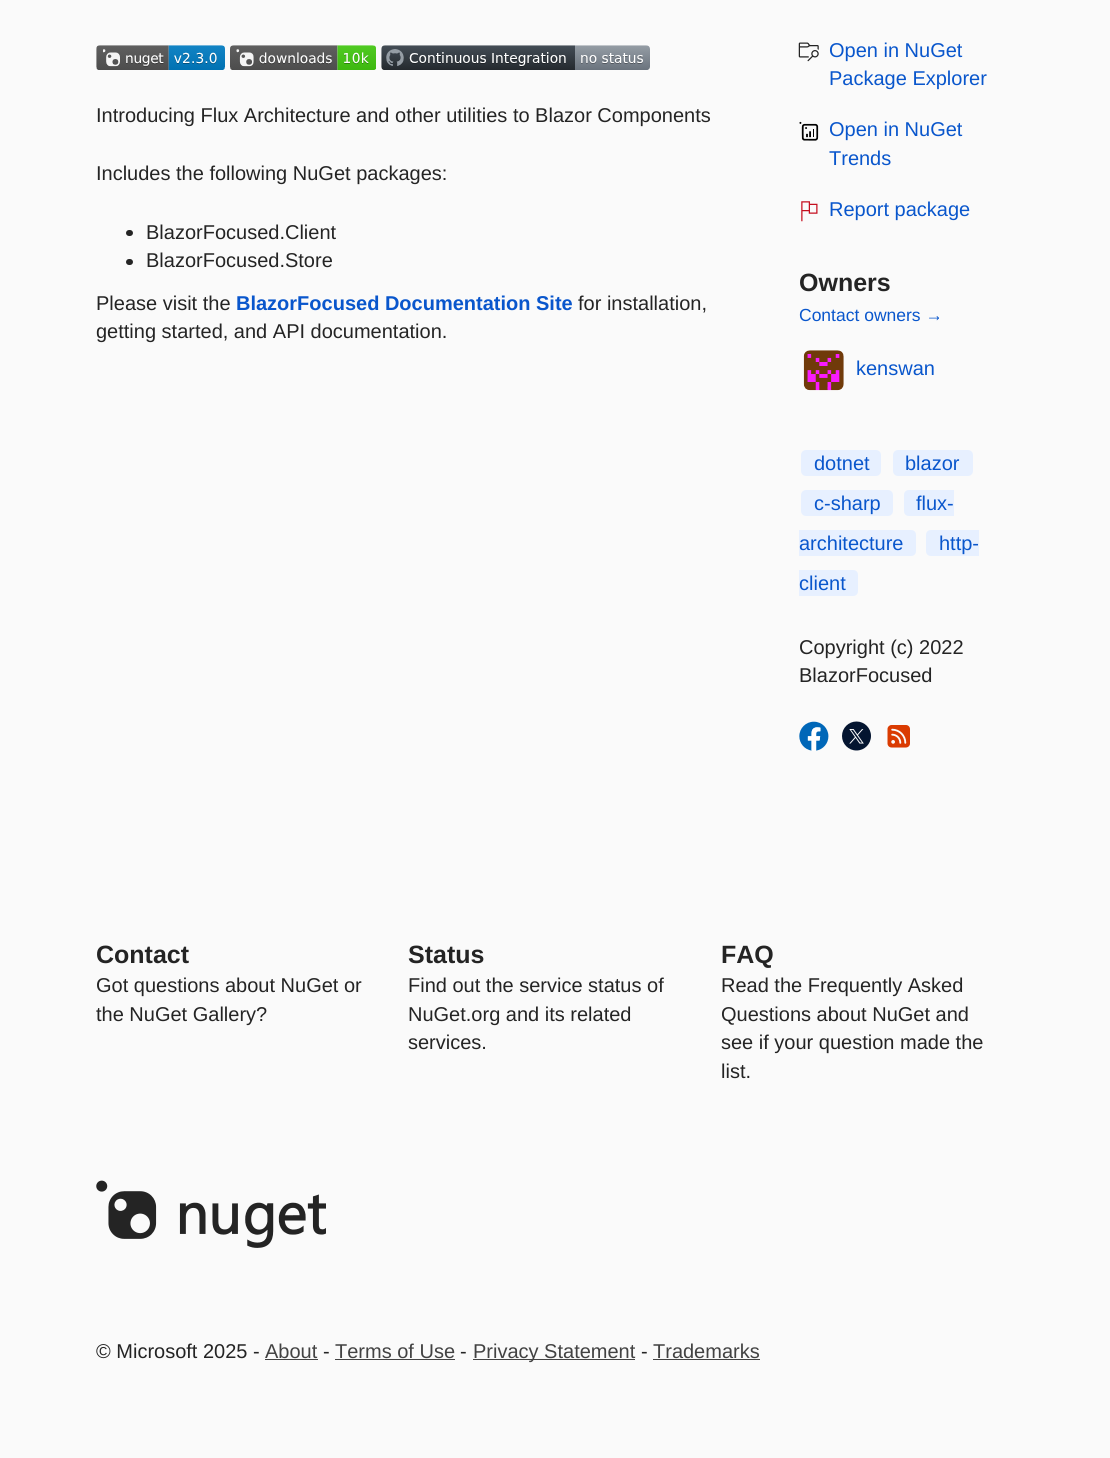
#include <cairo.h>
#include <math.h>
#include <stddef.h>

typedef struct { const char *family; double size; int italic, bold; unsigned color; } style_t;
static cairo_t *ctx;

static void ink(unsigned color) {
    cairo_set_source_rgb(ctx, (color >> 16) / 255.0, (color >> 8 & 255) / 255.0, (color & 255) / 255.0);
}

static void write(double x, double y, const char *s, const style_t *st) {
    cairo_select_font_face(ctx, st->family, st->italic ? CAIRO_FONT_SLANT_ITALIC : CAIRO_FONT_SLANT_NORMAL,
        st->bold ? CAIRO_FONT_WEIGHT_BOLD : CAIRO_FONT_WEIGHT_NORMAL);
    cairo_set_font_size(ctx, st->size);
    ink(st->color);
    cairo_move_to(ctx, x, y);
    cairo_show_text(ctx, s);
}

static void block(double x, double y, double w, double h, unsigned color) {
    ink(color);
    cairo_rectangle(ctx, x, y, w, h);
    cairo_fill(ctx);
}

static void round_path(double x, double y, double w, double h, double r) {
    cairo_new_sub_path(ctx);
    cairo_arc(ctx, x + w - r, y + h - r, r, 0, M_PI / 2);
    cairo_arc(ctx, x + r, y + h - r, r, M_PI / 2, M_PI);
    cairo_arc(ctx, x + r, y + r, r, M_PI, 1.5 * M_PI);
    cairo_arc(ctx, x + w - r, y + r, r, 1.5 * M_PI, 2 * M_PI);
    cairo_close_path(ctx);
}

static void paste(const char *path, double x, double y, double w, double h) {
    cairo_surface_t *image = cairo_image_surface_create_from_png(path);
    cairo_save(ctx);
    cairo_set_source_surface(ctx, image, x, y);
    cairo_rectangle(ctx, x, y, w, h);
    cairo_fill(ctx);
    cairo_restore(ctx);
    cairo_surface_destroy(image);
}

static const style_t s1 = {"Liberation Sans", 20, 0, 0, 0x242424};
static const style_t s2 = {"Liberation Sans", 20, 0, 1, 0x0956cc};
static const style_t s3 = {"Liberation Sans", 20, 0, 0, 0x0956cc};
static const style_t s4 = {"Liberation Sans", 25, 0, 1, 0x242424};
static const style_t s5 = {"Liberation Sans", 17.5, 0, 0, 0x0956cc};
static const style_t s6 = {"Liberation Sans", 20, 0, 0, 0x424242};

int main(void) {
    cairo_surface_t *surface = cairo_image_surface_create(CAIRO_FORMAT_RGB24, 1110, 1458);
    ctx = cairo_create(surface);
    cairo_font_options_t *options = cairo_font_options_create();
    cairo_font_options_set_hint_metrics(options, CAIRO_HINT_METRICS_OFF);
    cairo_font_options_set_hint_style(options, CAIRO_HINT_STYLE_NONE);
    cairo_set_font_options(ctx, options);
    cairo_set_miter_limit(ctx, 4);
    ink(0xfafafa);
    cairo_paint(ctx);
    paste("pic1.png", 96, 45, 129, 25);
    paste("pic2.png", 230, 45, 146, 25);
    paste("pic3.png", 381, 45, 269, 25);
    write(96, 122, "Introducing Flux Architecture and other utilities to Blazor Components", &s1);
    write(96, 180, "Includes the following NuGet packages:", &s1);
    round_path(126, 230, 7, 6, 3);
    cairo_fill(ctx);
    write(146, 239, "BlazorFocused.Client", &s1);
    round_path(126, 259, 7, 6, 3);
    cairo_fill(ctx);
    write(146, 267, "BlazorFocused.Store", &s1);
    write(96, 310, "Please visit the", &s1);
    write(236, 310, "BlazorFocused Documentation Site", &s2);
    write(578, 310, "for installation,", &s1);
    write(96, 338, "getting started, and API documentation.", &s1);
    paste("pic4.png", 798, 42, 21, 20);
    write(829, 57, "Open in NuGet", &s3);
    write(829, 85, "Package Explorer", &s3);
    paste("pic5.png", 799, 121, 20, 20);
    write(829, 136, "Open in NuGet", &s3);
    write(829, 165, "Trends", &s3);
    paste("pic6.png", 801, 201, 17, 21);
    write(829, 216, "Report package", &s3);
    write(799, 291, "Owners", &s4);
    write(799, 321, "Contact owners →", &s5);
    paste("pic7.png", 803, 350, 41, 41);
    write(856, 375, "kenswan", &s3);
    ink(0xe7f0ff);
    round_path(801, 450, 80, 26, 5);
    cairo_fill(ctx);
    write(814, 470, "dotnet", &s3);
    ink(0xe7f0ff);
    round_path(893, 450, 80, 26, 5);
    cairo_fill(ctx);
    write(905, 470, "blazor", &s3);
    ink(0xe7f0ff);
    round_path(801, 490, 92, 26, 5);
    cairo_fill(ctx);
    write(814, 510, "c-sharp", &s3);
    ink(0xe7f0ff);
    cairo_new_path(ctx);
    cairo_move_to(ctx, 909, 490);
    cairo_line_to(ctx, 954, 490);
    cairo_line_to(ctx, 954, 516);
    cairo_line_to(ctx, 909, 516);
    cairo_curve_to(ctx, 906, 516, 904, 514, 904, 511);
    cairo_line_to(ctx, 904, 495);
    cairo_curve_to(ctx, 904, 492, 906, 490, 909, 490);
    cairo_close_path(ctx);
    cairo_fill(ctx);
    write(916, 510, "flux-", &s3);
    ink(0xe7f0ff);
    cairo_new_path(ctx);
    cairo_move_to(ctx, 799, 530);
    cairo_line_to(ctx, 911, 530);
    cairo_curve_to(ctx, 914, 530, 916, 532, 916, 535);
    cairo_line_to(ctx, 916, 551);
    cairo_curve_to(ctx, 916, 554, 914, 556, 911, 556);
    cairo_line_to(ctx, 799, 556);
    cairo_close_path(ctx);
    cairo_fill(ctx);
    write(799, 550, "architecture", &s3);
    ink(0xe7f0ff);
    cairo_new_path(ctx);
    cairo_move_to(ctx, 931, 530);
    cairo_line_to(ctx, 979, 530);
    cairo_line_to(ctx, 979, 556);
    cairo_line_to(ctx, 931, 556);
    cairo_curve_to(ctx, 928, 556, 926, 554, 926, 551);
    cairo_line_to(ctx, 926, 535);
    cairo_curve_to(ctx, 926, 532, 928, 530, 931, 530);
    cairo_close_path(ctx);
    cairo_fill(ctx);
    write(939, 550, "http-", &s3);
    ink(0xe7f0ff);
    cairo_new_path(ctx);
    cairo_move_to(ctx, 799, 570);
    cairo_line_to(ctx, 853, 570);
    cairo_curve_to(ctx, 856, 570, 858, 572, 858, 575);
    cairo_line_to(ctx, 858, 591);
    cairo_curve_to(ctx, 858, 594, 856, 596, 853, 596);
    cairo_line_to(ctx, 799, 596);
    cairo_close_path(ctx);
    cairo_fill(ctx);
    write(799, 590, "client", &s3);
    write(799, 654, "Copyright (c) 2022", &s1);
    write(799, 682, "BlazorFocused", &s1);
    paste("pic8.png", 799, 721, 30, 30);
    paste("pic9.png", 842, 721, 29, 30);
    paste("pic10.png", 887, 725, 23, 23);
    write(96, 963, "Contact", &s4);
    write(96, 992, "Got questions about NuGet or", &s1);
    write(96, 1021, "the NuGet Gallery?", &s1);
    write(408, 963, "Status", &s4);
    write(408, 992, "Find out the service status of", &s1);
    write(408, 1021, "NuGet.org and its related", &s1);
    write(408, 1049, "services.", &s1);
    write(721, 963, "FAQ", &s4);
    write(721, 992, "Read the Frequently Asked", &s1);
    write(721, 1021, "Questions about NuGet and", &s1);
    write(721, 1049, "see if your question made the", &s1);
    write(721, 1078, "list.", &s1);
    paste("pic11.png", 96, 1180, 230, 68);
    write(96, 1358, "© Microsoft 2025 -", &s1);
    write(265, 1358, "About", &s6);
    block(265, 1359, 53, 1, 0x424242);
    write(323, 1358, "-", &s1);
    write(335, 1358, "Terms of Use", &s6);
    block(335, 1359, 120, 1, 0x424242);
    write(460, 1358, "-", &s1);
    block(473, 1359, 162, 1, 0x424242);
    write(473, 1358, "Privacy Statement", &s6);
    write(641, 1358, "-", &s1);
    write(653, 1358, "Trademarks", &s6);
    block(653, 1359, 107, 1, 0x424242);
    cairo_surface_write_to_png(surface, "screenshot.png");
    cairo_font_options_destroy(options);
    cairo_destroy(ctx);
    cairo_surface_destroy(surface);
    return 0;
}
